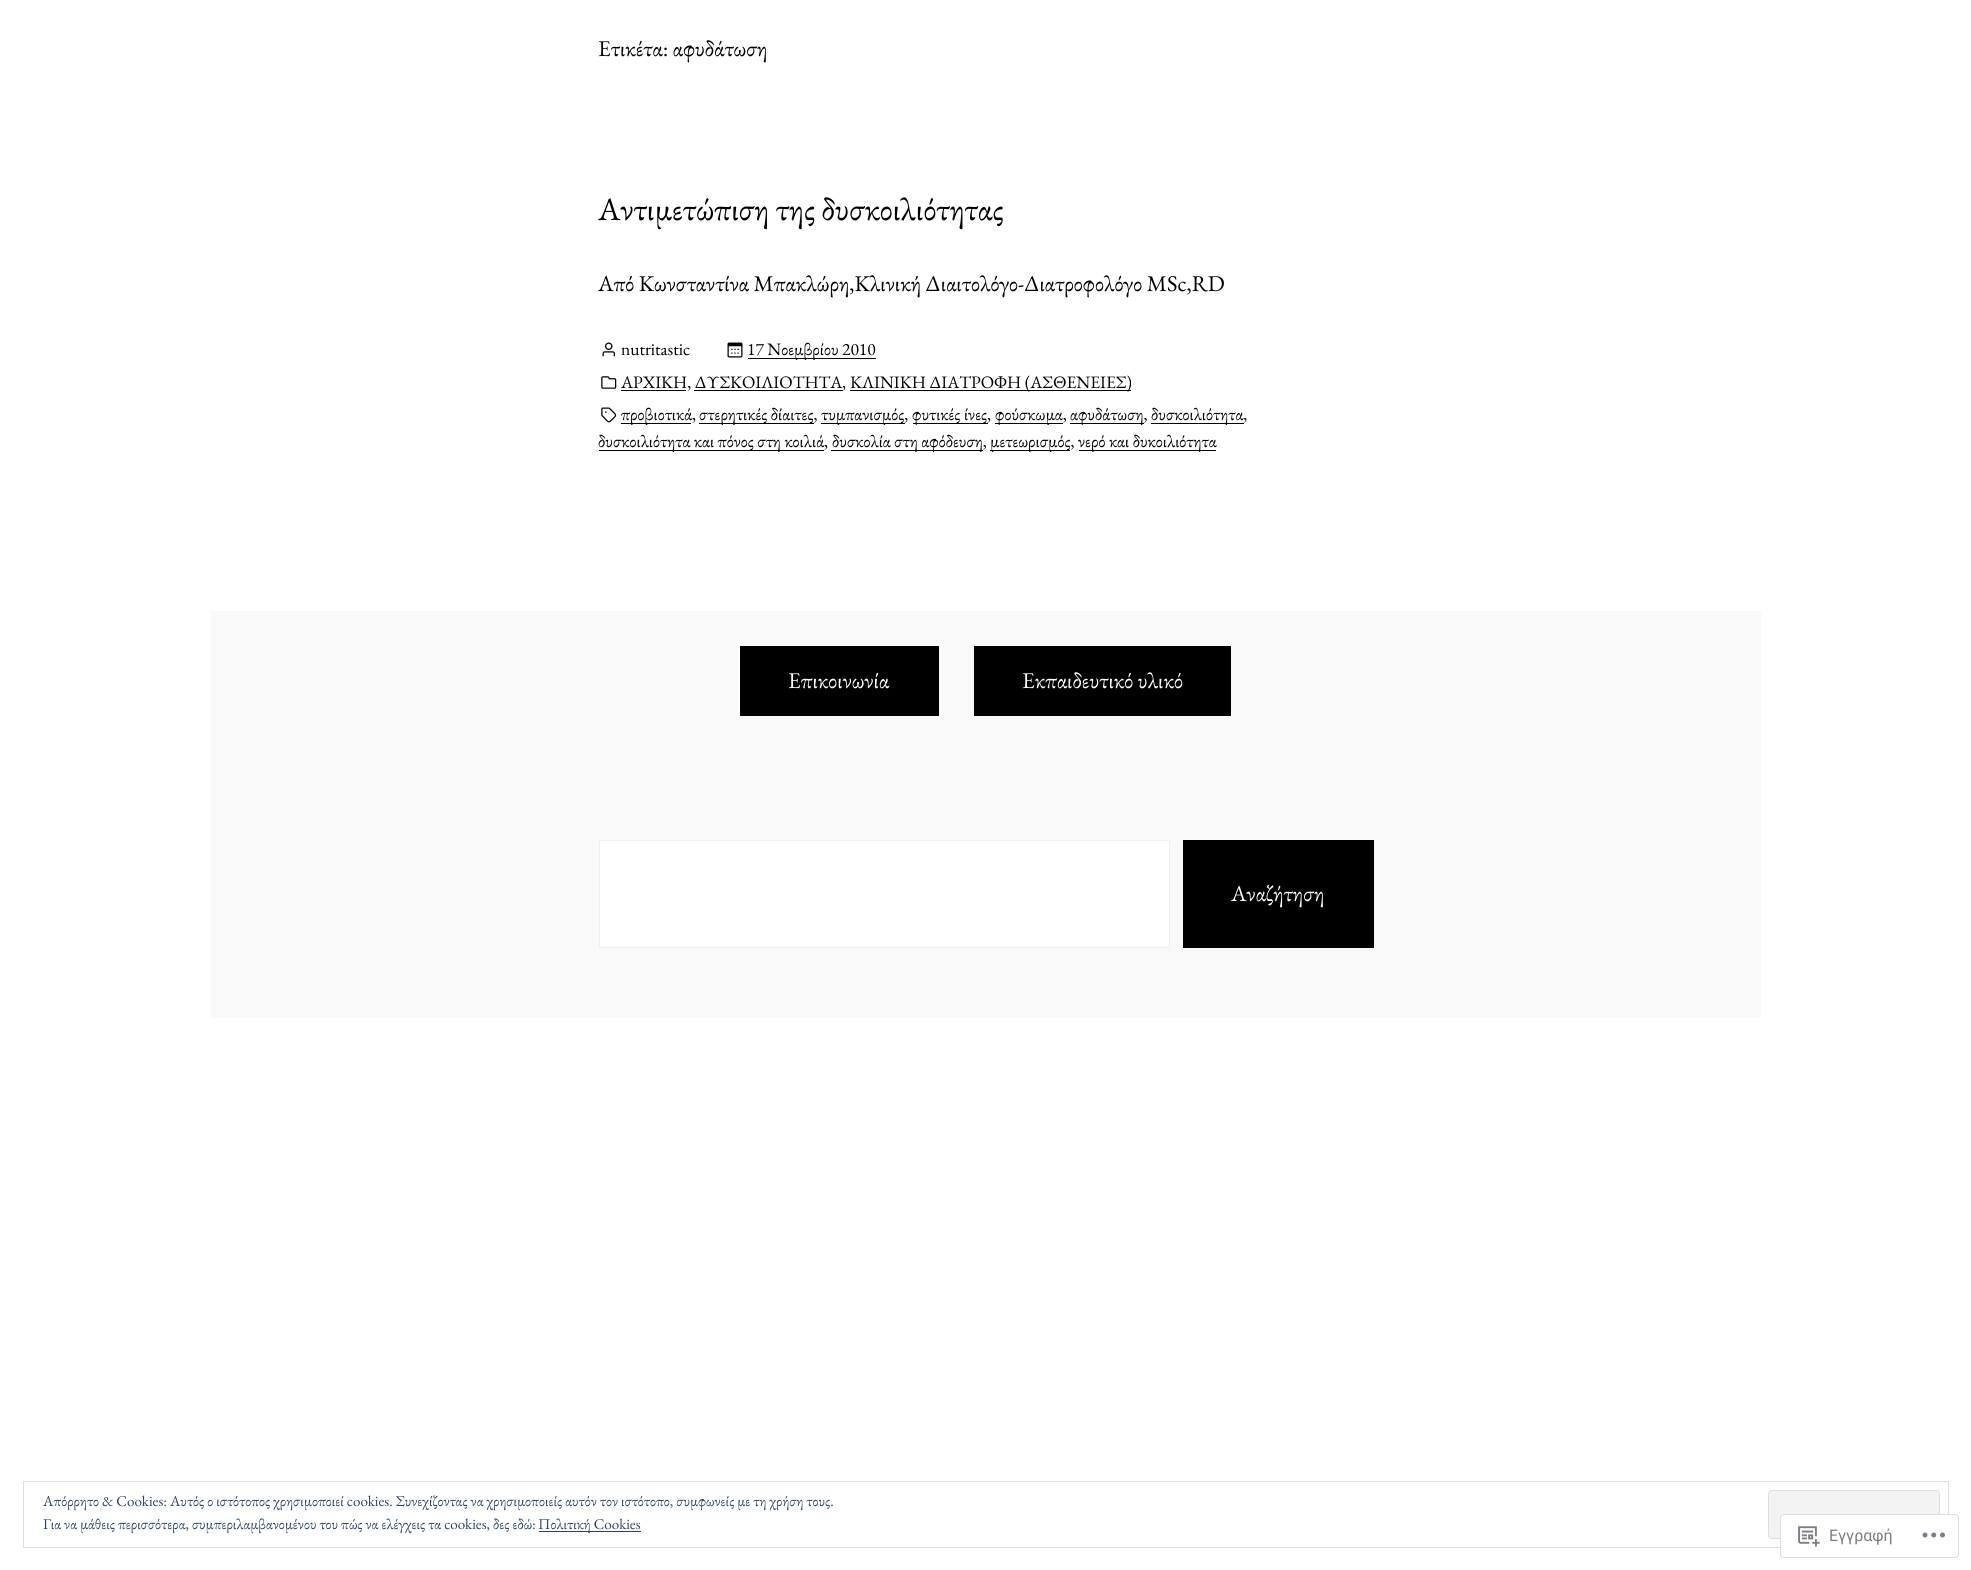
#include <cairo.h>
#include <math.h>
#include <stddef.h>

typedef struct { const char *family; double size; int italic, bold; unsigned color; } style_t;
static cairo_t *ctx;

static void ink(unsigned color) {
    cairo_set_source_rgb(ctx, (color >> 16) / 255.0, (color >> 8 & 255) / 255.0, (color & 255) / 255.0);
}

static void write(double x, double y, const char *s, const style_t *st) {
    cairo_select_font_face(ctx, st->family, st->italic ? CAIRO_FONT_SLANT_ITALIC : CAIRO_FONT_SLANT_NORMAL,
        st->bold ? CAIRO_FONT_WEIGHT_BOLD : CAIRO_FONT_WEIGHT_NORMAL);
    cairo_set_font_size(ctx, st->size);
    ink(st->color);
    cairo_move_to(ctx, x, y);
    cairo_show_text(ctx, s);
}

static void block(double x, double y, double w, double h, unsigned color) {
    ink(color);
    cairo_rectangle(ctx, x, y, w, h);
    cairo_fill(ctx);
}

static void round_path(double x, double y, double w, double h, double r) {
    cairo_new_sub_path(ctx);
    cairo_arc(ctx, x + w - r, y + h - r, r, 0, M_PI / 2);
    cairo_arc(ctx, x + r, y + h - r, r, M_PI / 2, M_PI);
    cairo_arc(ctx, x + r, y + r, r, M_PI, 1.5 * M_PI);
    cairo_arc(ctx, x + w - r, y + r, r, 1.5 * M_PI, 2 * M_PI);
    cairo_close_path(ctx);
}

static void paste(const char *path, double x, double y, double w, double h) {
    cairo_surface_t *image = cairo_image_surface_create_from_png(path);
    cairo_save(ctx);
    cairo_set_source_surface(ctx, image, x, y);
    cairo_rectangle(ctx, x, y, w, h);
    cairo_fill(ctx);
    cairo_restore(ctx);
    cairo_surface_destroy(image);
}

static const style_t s1 = {"EB Garamond", 22.5, 0, 0, 0x000000};
static const style_t s2 = {"EB Garamond", 32.4, 0, 0, 0x000000};
static const style_t s3 = {"EB Garamond", 17.5, 0, 0, 0x000000};
static const style_t s4 = {"EB Garamond", 22.5, 0, 0, 0xffffff};
static const style_t s5 = {"EB Garamond", 15, 0, 0, 0x2e4467};
static const style_t s6 = {"Roboto", 16, 0, 0, 0x7b7f84};

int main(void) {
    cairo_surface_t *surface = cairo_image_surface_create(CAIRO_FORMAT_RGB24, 1971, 1570);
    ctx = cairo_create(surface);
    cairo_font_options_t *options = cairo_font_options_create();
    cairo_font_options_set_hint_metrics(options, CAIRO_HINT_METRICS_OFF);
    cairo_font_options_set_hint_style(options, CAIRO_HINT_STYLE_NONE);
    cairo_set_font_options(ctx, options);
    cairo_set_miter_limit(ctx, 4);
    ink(0xffffff);
    cairo_paint(ctx);
    write(598, 56, "Ετικέτα: αφυδάτωση", &s1);
    write(598, 220, "Αντιμετώπιση της δυσκοιλιότητας", &s2);
    write(598, 291, "Από Κωνσταντίνα Μπακλώρη,Κλινική Διαιτολόγο-Διατροφολόγο MSc,RD", &s1);
    paste("pic1.png", 602, 342, 13, 15);
    write(621, 355, "nutritastic", &s3);
    paste("pic2.png", 727, 342, 16, 16);
    block(748, 358, 128, 1, 0x000000);
    write(747, 355, "17 Νοεμβρίου 2010", &s3);
    paste("pic3.png", 601, 376, 16, 13);
    block(621, 390, 65, 1, 0x000000);
    write(621, 388, "ΑΡΧΙΚΗ, ΔΥΣΚΟΙΛΙΟΤΗΤΑ", &s3);
    block(694, 390, 149, 1, 0x000000);
    write(842, 388, ",", &s3);
    block(850, 390, 281, 1, 0x000000);
    write(850, 388, "ΚΛΙΝΙΚΗ ΔΙΑΤΡΟΦΗ (ΑΣΘΕΝΕΙΕΣ)", &s3);
    paste("pic4.png", 601, 407, 16, 16);
    block(621, 423, 70, 1, 0x000000);
    write(621, 420, "προβιοτικά,", &s3);
    block(699, 423, 115, 1, 0x000000);
    write(699, 420, "στερητικές δίαιτες,", &s3);
    block(821, 423, 84, 1, 0x000000);
    write(821, 420, "τυμπανισμός,", &s3);
    block(913, 423, 75, 1, 0x000000);
    write(912, 420, "φυτικές ίνες,", &s3);
    block(995, 423, 68, 1, 0x000000);
    write(995, 420, "φούσκωμα,", &s3);
    block(1070, 423, 74, 1, 0x000000);
    write(1070, 420, "αφυδάτωση,", &s3);
    block(1151, 423, 93, 1, 0x000000);
    write(1151, 420, "δυσκοιλιότητα,", &s3);
    block(599, 450, 225, 1, 0x000000);
    write(598, 447, "δυσκοιλιότητα και πόνος στη κοιλιά,", &s3);
    block(831, 450, 152, 1, 0x000000);
    write(832, 447, "δυσκολία στη αφόδευση,", &s3);
    block(990, 450, 80, 1, 0x000000);
    write(990, 447, "μετεωρισμός,", &s3);
    block(1079, 450, 137, 1, 0x000000);
    write(1078, 447, "νερό και δυκοιλιότητα", &s3);
    block(211, 611, 1550, 407, 0xf9f9f9);
    block(740, 646, 199, 70, 0x000000);
    write(788, 688, "Επικοινωνία", &s4);
    block(974, 646, 257, 70, 0x000000);
    write(1022, 688, "Εκπαιδευτικό υλικό", &s4);
    cairo_rectangle(ctx, 599.5, 840.5, 570, 107);
    cairo_fill_preserve(ctx);
    ink(0xefefef);
    cairo_set_line_width(ctx, 1);
    cairo_stroke(ctx);
    block(1183, 840, 191, 108, 0x000000);
    write(1231, 901, "Αναζήτηση", &s4);
    cairo_rectangle(ctx, 23.5, 1481.5, 1925, 66);
    ink(0xdedede);
    cairo_stroke(ctx);
    write(43, 1506, "Απόρρητο & Cookies: Αυτός ο ιστότοπος χρησιμοποιεί cookies. Συνεχίζοντας να χρησιμοποιείς αυτόν τον ιστότοπο, συμφωνείς με τη χρήση τους.", &s5);
    ink(0xf3f3f3);
    round_path(1768.5, 1490.5, 171, 48, 3.5);
    cairo_fill_preserve(ctx);
    ink(0xdedede);
    cairo_stroke(ctx);
    write(43, 1529, "Για να μάθεις περισσότερα, συμπεριλαμβανομένου του πώς να ελέγχεις τα cookies, δες εδώ:", &s5);
    block(539, 1531, 102, 1, 0x2e4467);
    write(538, 1529, "Πολιτική Cookies", &s5);
    cairo_set_source_rgba(ctx, 1, 1, 1, 0.98);
    round_path(1780, 1514, 179, 44, 4);
    cairo_fill(ctx);
    round_path(1780.5, 1514.5, 178, 43, 3.5);
    cairo_set_source_rgba(ctx, 0.863, 0.863, 0.871, 0.98);
    cairo_stroke(ctx);
    paste("pic5.png", 1798, 1526, 22, 21);
    write(1829, 1541, "Εγγραφή", &s6);
    paste("pic6.png", 1922, 1532, 23, 6);
    cairo_surface_write_to_png(surface, "screenshot.png");
    cairo_font_options_destroy(options);
    cairo_destroy(ctx);
    cairo_surface_destroy(surface);
    return 0;
}
